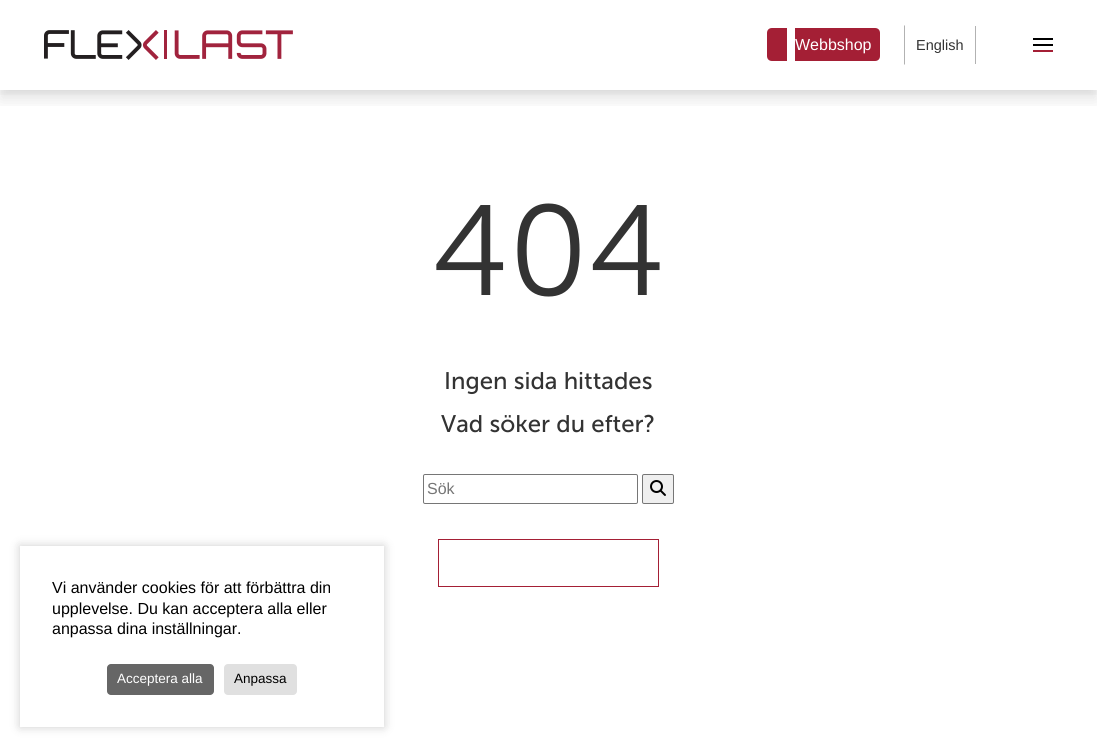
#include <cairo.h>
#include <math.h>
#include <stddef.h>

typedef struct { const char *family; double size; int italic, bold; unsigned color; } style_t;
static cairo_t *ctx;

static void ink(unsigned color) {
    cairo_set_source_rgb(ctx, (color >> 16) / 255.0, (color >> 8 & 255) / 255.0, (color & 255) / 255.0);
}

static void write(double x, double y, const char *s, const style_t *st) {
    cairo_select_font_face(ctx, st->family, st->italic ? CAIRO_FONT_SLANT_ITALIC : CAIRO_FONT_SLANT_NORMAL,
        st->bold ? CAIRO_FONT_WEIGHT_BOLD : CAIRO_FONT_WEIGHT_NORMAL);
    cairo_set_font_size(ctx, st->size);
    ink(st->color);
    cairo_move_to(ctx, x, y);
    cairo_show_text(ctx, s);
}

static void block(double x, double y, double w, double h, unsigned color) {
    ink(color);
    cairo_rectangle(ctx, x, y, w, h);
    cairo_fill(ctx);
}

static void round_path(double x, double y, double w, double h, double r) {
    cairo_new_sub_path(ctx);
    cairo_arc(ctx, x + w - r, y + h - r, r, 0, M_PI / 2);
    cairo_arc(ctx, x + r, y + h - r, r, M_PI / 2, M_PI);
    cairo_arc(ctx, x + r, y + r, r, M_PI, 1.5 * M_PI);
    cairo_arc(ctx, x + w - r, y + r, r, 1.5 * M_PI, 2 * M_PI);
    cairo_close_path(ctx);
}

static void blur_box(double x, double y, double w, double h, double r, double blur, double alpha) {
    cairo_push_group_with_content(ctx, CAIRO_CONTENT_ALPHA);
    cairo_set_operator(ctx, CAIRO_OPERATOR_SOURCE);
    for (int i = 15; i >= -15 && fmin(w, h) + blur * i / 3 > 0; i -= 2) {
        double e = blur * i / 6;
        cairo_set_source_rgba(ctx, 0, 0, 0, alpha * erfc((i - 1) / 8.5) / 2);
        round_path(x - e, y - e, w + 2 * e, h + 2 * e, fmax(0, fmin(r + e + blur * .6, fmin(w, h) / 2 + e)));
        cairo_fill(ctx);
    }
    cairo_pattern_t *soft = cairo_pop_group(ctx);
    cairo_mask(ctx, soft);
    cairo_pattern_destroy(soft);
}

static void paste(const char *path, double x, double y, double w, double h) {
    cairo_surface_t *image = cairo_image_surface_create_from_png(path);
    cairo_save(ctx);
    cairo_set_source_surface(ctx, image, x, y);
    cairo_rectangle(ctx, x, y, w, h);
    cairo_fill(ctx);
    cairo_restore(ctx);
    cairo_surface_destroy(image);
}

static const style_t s1 = {"Liberation Sans", 16, 0, 0, 0xffffff};
static const style_t s2 = {"Liberation Sans", 14.5, 0, 0, 0x333333};
static const style_t s3 = {"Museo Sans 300 Light", 128, 0, 0, 0x333333};
static const style_t s4 = {"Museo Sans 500", 24, 0, 0, 0x333333};
static const style_t s5 = {"Liberation Sans", 16, 0, 0, 0x757575};
static const style_t s6 = {"Liberation Sans", 16, 0, 0, 0x000000};
static const style_t s7 = {"Liberation Sans", 13.5, 0, 0, 0xffffff};
static const style_t s8 = {"Liberation Sans", 13.5, 0, 0, 0x000000};

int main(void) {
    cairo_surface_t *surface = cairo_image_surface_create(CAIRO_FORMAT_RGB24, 1097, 747);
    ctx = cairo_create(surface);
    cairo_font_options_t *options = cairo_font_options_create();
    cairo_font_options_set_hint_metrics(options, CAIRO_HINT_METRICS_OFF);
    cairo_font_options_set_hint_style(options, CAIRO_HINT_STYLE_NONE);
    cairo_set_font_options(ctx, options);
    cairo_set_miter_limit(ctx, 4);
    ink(0xffffff);
    cairo_paint(ctx);
    cairo_save(ctx);
    cairo_rectangle(ctx, 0, 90, 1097, 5);
    cairo_clip(ctx);
    ink(0x000000);
    blur_box(0, 4, 1097, 90, 0, 3, 0.05);
    cairo_restore(ctx);
    cairo_save(ctx);
    cairo_rectangle(ctx, 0, 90, 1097, 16);
    cairo_clip(ctx);
    ink(0x000000);
    blur_box(0, 10, 1097, 90, 0, 7.5, 0.1);
    cairo_restore(ctx);
    paste("pic1.png", 44, 30, 249, 30);
    ink(0xa41f35);
    cairo_new_path(ctx);
    cairo_move_to(ctx, 795, 28);
    cairo_line_to(ctx, 875, 28);
    cairo_curve_to(ctx, 878, 28, 880, 30, 880, 33);
    cairo_line_to(ctx, 880, 56);
    cairo_curve_to(ctx, 880, 59, 878, 61, 875, 61);
    cairo_line_to(ctx, 795, 61);
    cairo_close_path(ctx);
    cairo_fill(ctx);
    write(795, 50, "Webbshop", &s1);
    ink(0xa41f35);
    cairo_new_path(ctx);
    cairo_move_to(ctx, 772, 28);
    cairo_line_to(ctx, 787, 28);
    cairo_line_to(ctx, 787, 61);
    cairo_line_to(ctx, 772, 61);
    cairo_curve_to(ctx, 769, 61, 767, 59, 767, 56);
    cairo_line_to(ctx, 767, 33);
    cairo_curve_to(ctx, 767, 30, 769, 28, 772, 28);
    cairo_close_path(ctx);
    cairo_fill(ctx);
    ink(0xb2b2b2);
    cairo_new_path(ctx);
    cairo_move_to(ctx, 904, 65);
    cairo_line_to(ctx, 904, 25);
    cairo_line_to(ctx, 905, 26);
    cairo_line_to(ctx, 905, 64);
    cairo_close_path(ctx);
    cairo_fill(ctx);
    block(975, 26, 1, 38, 0xb2b2b2);
    write(916, 50, "English", &s2);
    block(1033, 44, 20, 2, 0x000000);
    block(1033, 38, 20, 2, 0x000000);
    block(1033, 50, 20, 2, 0xa41f35);
    write(432, 295, "404", &s3);
    write(444, 389, "Ingen sida hittades", &s4);
    write(441, 432, "Vad söker du efter?", &s4);
    round_path(423.5, 474.5, 214, 29, 1.5);
    ink(0x767676);
    cairo_set_line_width(ctx, 1);
    cairo_stroke(ctx);
    write(427, 494, "Sök", &s5);
    ink(0xefefef);
    round_path(642.5, 474.5, 31, 29, 1.5);
    cairo_fill_preserve(ctx);
    ink(0x767676);
    cairo_stroke(ctx);
    paste("pic2.png", 650, 480, 16, 16);
    cairo_rectangle(ctx, 438.5, 539.5, 220, 47);
    ink(0xa41f35);
    cairo_stroke(ctx);
    cairo_save(ctx);
    cairo_set_fill_rule(ctx, CAIRO_FILL_RULE_EVEN_ODD);
    cairo_new_path(ctx);
    cairo_move_to(ctx, 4, 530);
    cairo_line_to(ctx, 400, 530);
    cairo_line_to(ctx, 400, 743);
    cairo_line_to(ctx, 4, 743);
    cairo_close_path(ctx);
    cairo_move_to(ctx, 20, 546);
    cairo_line_to(ctx, 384, 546);
    cairo_line_to(ctx, 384, 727);
    cairo_line_to(ctx, 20, 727);
    cairo_close_path(ctx);
    cairo_clip(ctx);
    ink(0x000000);
    blur_box(20, 546, 364, 181, 0, 5, 0.2);
    cairo_restore(ctx);
    write(52, 593, "Vi använder cookies för att förbättra din", &s6);
    write(52, 614, "upplevelse. Du kan acceptera alla eller", &s6);
    write(52, 634, "anpassa dina inställningar.", &s6);
    ink(0x666666);
    round_path(107, 664, 107, 31, 4);
    cairo_fill(ctx);
    write(117, 683, "Acceptera alla", &s7);
    ink(0xe0e0e0);
    round_path(224, 664, 73, 31, 4);
    cairo_fill(ctx);
    write(234, 683, "Anpassa", &s8);
    cairo_surface_write_to_png(surface, "screenshot.png");
    cairo_font_options_destroy(options);
    cairo_destroy(ctx);
    cairo_surface_destroy(surface);
    return 0;
}
